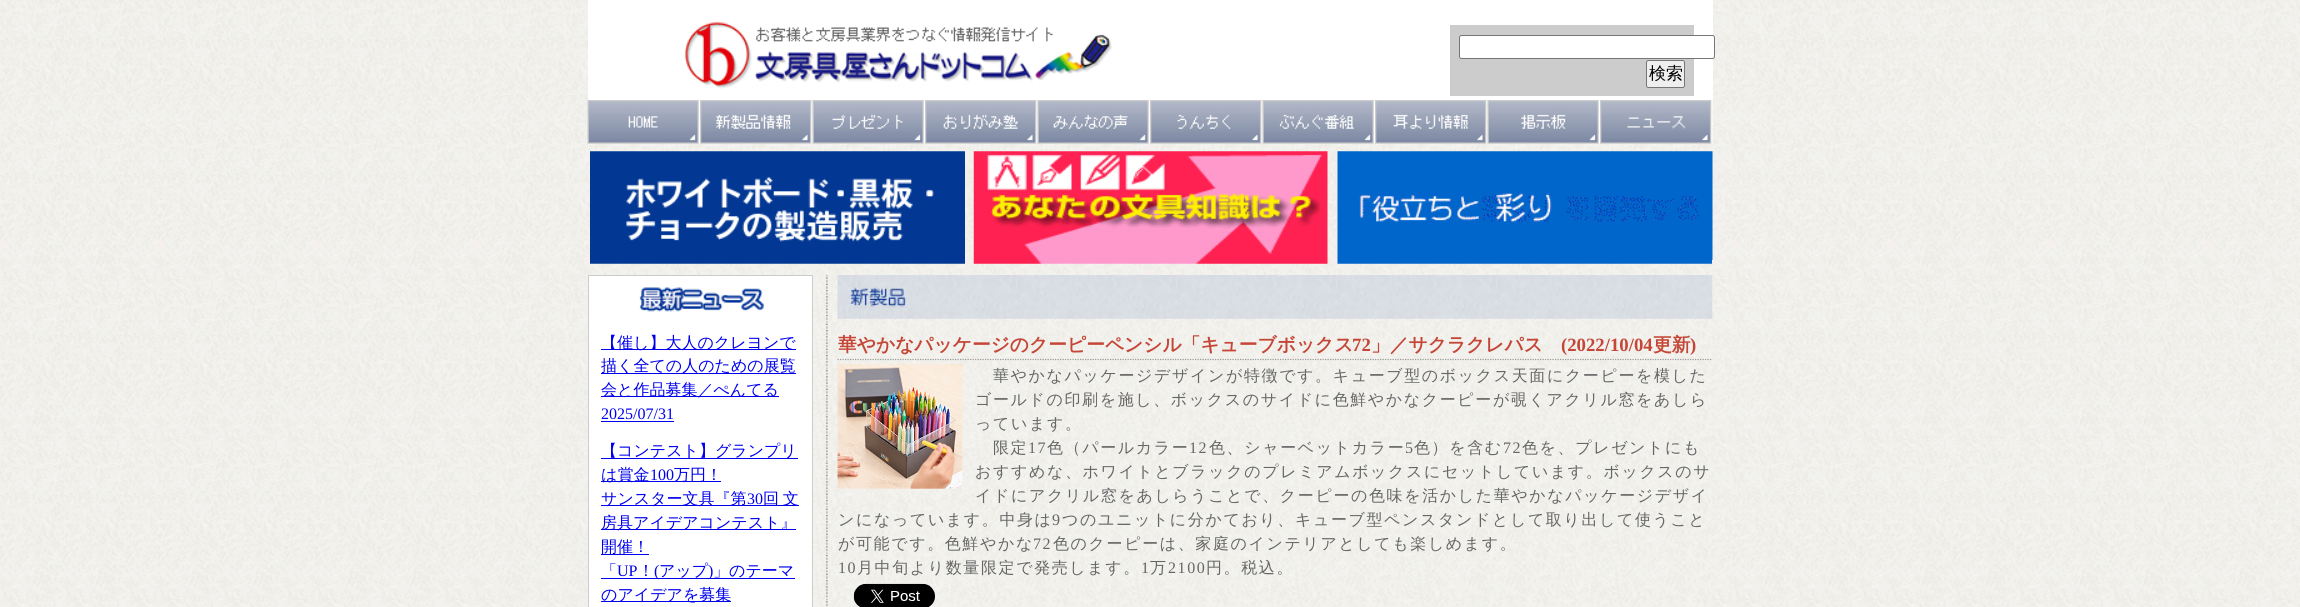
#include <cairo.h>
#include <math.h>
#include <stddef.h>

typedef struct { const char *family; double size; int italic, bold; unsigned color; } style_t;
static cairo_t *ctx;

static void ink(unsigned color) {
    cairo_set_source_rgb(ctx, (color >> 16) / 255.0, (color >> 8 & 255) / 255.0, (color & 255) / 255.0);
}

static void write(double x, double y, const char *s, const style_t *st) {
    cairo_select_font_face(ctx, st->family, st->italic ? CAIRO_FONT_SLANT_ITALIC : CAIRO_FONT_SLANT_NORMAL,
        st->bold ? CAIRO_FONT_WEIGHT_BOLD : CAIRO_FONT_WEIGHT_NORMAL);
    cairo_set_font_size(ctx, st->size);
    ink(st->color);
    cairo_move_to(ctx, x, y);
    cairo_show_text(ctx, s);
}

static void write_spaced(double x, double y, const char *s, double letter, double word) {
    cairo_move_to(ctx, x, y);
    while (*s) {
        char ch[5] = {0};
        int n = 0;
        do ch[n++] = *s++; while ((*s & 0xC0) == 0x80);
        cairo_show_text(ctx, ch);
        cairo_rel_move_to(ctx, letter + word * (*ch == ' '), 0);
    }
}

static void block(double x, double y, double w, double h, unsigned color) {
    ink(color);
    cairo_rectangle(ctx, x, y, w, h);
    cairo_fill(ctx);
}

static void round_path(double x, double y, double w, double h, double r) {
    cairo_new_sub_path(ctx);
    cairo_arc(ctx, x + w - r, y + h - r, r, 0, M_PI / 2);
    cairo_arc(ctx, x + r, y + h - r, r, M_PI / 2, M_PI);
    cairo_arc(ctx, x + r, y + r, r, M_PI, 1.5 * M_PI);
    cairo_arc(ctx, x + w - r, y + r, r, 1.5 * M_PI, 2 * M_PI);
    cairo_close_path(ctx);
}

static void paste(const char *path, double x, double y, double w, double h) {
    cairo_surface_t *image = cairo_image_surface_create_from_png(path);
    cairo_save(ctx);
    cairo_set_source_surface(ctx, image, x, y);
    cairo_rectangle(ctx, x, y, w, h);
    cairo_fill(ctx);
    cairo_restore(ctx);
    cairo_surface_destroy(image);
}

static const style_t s1 = {"WenQuanYi Zen Hei Medium", 17, 0, 0, 0x000000};
static const style_t s2 = {"WenQuanYi Zen Hei Medium", 16, 0, 0, 0x0000ee};
static const style_t s3 = {"Liberation Serif", 16, 0, 0, 0x0000ee};
static const style_t s4 = {"WenQuanYi Zen Hei", 18.75, 0, 1, 0xc54637};
static const style_t s5 = {"Liberation Serif", 18.75, 0, 1, 0xc54637};

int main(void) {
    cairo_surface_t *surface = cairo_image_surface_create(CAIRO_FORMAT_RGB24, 2300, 607);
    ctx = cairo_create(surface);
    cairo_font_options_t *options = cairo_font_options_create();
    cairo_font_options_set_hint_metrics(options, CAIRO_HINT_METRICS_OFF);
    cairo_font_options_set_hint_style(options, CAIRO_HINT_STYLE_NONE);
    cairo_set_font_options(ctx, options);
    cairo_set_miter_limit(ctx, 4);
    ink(0xffffff);
    cairo_paint(ctx);
    paste("pic1.png", 0, 0, 2300, 607);
    block(588, 0, 1125, 100, 0xffffff);
    paste("pic2.png", 684, 21, 428, 68);
    block(1450, 25, 244, 71, 0xcccccc);
    ink(0xffffff);
    round_path(1459.5, 35.5, 255, 23, 2);
    cairo_fill_preserve(ctx);
    ink(0x767676);
    cairo_set_line_width(ctx, 1);
    cairo_stroke(ctx);
    ink(0xefefef);
    round_path(1646.5, 60.5, 38, 27, 2);
    cairo_fill_preserve(ctx);
    ink(0x767676);
    cairo_stroke(ctx);
    write(1649, 79, "検索", &s1);
    paste("pic3.png", 587, 100, 113, 44);
    paste("pic4.png", 700, 100, 113, 44);
    paste("pic5.png", 812, 100, 113, 44);
    paste("pic6.png", 925, 100, 113, 44);
    paste("pic7.png", 1037, 100, 113, 44);
    paste("pic8.png", 1150, 100, 113, 44);
    paste("pic9.png", 1262, 100, 113, 44);
    paste("pic10.png", 1375, 100, 113, 44);
    paste("pic11.png", 1487, 100, 113, 44);
    paste("pic12.png", 1600, 100, 113, 44);
    block(1147, 145, 7, 6, 0xf7efef);
    block(584, 257, 6, 7, 0xf7efef);
    paste("pic13.png", 590, 151, 375, 113);
    block(965, 260, 4, 4, 0xf7efef);
    paste("pic14.png", 973, 151, 355, 113);
    block(1333, 259, 5, 5, 0xf7efef);
    paste("pic15.png", 1337, 151, 376, 113);
    block(1712, 260, 4, 4, 0xf7efef);
    block(1147, 269, 7, 6, 0xf7efef);
    paste("pic16.png", 587, 275, 1124, 332);
    ink(0xffffff);
    cairo_rectangle(ctx, 588.5, 275.5, 224, 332);
    cairo_fill_preserve(ctx);
    ink(0xcccccc);
    cairo_stroke(ctx);
    paste("pic17.png", 639, 287, 125, 25);
    block(601, 349, 195, 1, 0x0000ee);
    write(601, 348, "【催し】大人のクレヨンで", &s2);
    block(601, 373, 195, 1, 0x0000ee);
    write(601, 371, "描く全ての人のための展覧", &s2);
    block(601, 396, 178, 1, 0x0000ee);
    write(601, 395, "会と作品募集／ぺんてる", &s2);
    write(601, 419, "2025/07/31", &s3);
    block(601, 421, 73, 1, 0x0000ee);
    block(601, 458, 197, 1, 0x0000ee);
    write(601, 456, "【コンテスト】グランプリ", &s2);
    block(601, 481, 120, 1, 0x0000ee);
    write(601, 480, "は賞⾦", &s2);
    write(650, 480, "100", &s3);
    write(674, 480, "万円！", &s2);
    block(601, 505, 198, 1, 0x0000ee);
    write(601, 504, "サンスター文具『第", &s2);
    write(747, 504, "30", &s3);
    cairo_select_font_face(ctx, "WenQuanYi Zen Hei Medium", CAIRO_FONT_SLANT_NORMAL, CAIRO_FONT_WEIGHT_NORMAL);
    write_spaced(763, 504, "回 文", 0, -1);
    block(601, 529, 195, 1, 0x0000ee);
    write(601, 528, "房具アイデアコンテスト』", &s2);
    block(601, 554, 48, 1, 0x0000ee);
    write(601, 552, "開催！", &s2);
    write(601, 576, "「", &s2);
    write(617, 576, "UP", &s3);
    write(638, 576, "！", &s2);
    block(601, 578, 194, 1, 0x0000ee);
    write(654, 576, "(", &s3);
    write(659, 576, "アップ", &s2);
    write(708, 576, ")", &s3);
    write(713, 576, "」のテーマ", &s2);
    block(601, 601, 130, 1, 0x0000ee);
    write(601, 600, "のアイデアを募集", &s2);
    paste("pic18.png", 837, 275, 876, 44);
    cairo_new_path(ctx);
    cairo_move_to(ctx, 837.5, 359.5);
    cairo_line_to(ctx, 1712.5, 359.5);
    ink(0x999999);
    cairo_set_line_width(ctx, 1.2);
    cairo_set_dash(ctx, (double[]){1.25, 1.25}, 2, 0);
    cairo_stroke(ctx);
    write(838, 351, "華やかなパッケージのクーピーペンシル「キューブボックス", &s4);
    write(1352, 351, "72", &s5);
    write(1371, 351, "」／サクラクレパス", &s4);
    write(1561, 351, "(2022/10/04", &s5);
    write(1653, 351, "更新", &s4);
    write(1690, 351, ")", &s5);
    paste("pic19.png", 837, 363, 126, 126);
    cairo_select_font_face(ctx, "WenQuanYi Zen Hei Medium", CAIRO_FONT_SLANT_NORMAL, CAIRO_FONT_WEIGHT_NORMAL);
    cairo_set_font_size(ctx, 16);
    ink(0x666666);
    write_spaced(993, 381, "華やかなパッケージデザインが特徴です。キューブ型のボックス天面にクーピーを模した", 1.6, 0);
    write_spaced(975, 405, "ゴールドの印刷を施し、ボックスのサイドに色鮮やかなクーピーが覗くアクリル窓をあしら", 1.6, 0);
    write_spaced(975, 429, "っています。", 1.6, 0);
    write_spaced(993, 453, "限定", 1.6, 0);
    cairo_select_font_face(ctx, "Liberation Serif", CAIRO_FONT_SLANT_NORMAL, CAIRO_FONT_WEIGHT_NORMAL);
    write_spaced(1028, 453, "17", 1.6, 0);
    cairo_select_font_face(ctx, "WenQuanYi Zen Hei Medium", CAIRO_FONT_SLANT_NORMAL, CAIRO_FONT_WEIGHT_NORMAL);
    write_spaced(1047, 453, "色（パールカラー", 1.6, 0);
    cairo_select_font_face(ctx, "Liberation Serif", CAIRO_FONT_SLANT_NORMAL, CAIRO_FONT_WEIGHT_NORMAL);
    write_spaced(1189, 453, "12", 1.6, 0);
    cairo_select_font_face(ctx, "WenQuanYi Zen Hei Medium", CAIRO_FONT_SLANT_NORMAL, CAIRO_FONT_WEIGHT_NORMAL);
    write_spaced(1209, 453, "色、シャーベットカラー", 1.6, 0);
    cairo_select_font_face(ctx, "Liberation Serif", CAIRO_FONT_SLANT_NORMAL, CAIRO_FONT_WEIGHT_NORMAL);
    write_spaced(1405, 453, "5", 1.6, 0);
    cairo_select_font_face(ctx, "WenQuanYi Zen Hei Medium", CAIRO_FONT_SLANT_NORMAL, CAIRO_FONT_WEIGHT_NORMAL);
    write_spaced(1414, 453, "色）を含む", 1.6, 0);
    cairo_select_font_face(ctx, "Liberation Serif", CAIRO_FONT_SLANT_NORMAL, CAIRO_FONT_WEIGHT_NORMAL);
    write_spaced(1503, 453, "72", 1.6, 0);
    cairo_select_font_face(ctx, "WenQuanYi Zen Hei Medium", CAIRO_FONT_SLANT_NORMAL, CAIRO_FONT_WEIGHT_NORMAL);
    write_spaced(1522, 453, "色を、プレゼントにも", 1.6, 0);
    write_spaced(975, 477, "おすすめな、ホワイトとブラックのプレミアムボックスにセットしています。ボックスのサ", 1.6, 0);
    write_spaced(975, 501, "イドにアクリル窓をあしらうことで、クーピーの色味を活かした華やかなパッケージデザイ", 1.6, 0);
    write_spaced(838, 525, "ンになっています。中身は", 1.6, 0);
    cairo_select_font_face(ctx, "Liberation Serif", CAIRO_FONT_SLANT_NORMAL, CAIRO_FONT_WEIGHT_NORMAL);
    write_spaced(1052, 525, "9", 1.6, 0);
    cairo_select_font_face(ctx, "WenQuanYi Zen Hei Medium", CAIRO_FONT_SLANT_NORMAL, CAIRO_FONT_WEIGHT_NORMAL);
    write_spaced(1062, 525, "つのユニットに分かており、キューブ型ペンスタンドとして取り出して使うこと", 1.6, 0);
    write_spaced(838, 549, "が可能です。色鮮やかな", 1.6, 0);
    cairo_select_font_face(ctx, "Liberation Serif", CAIRO_FONT_SLANT_NORMAL, CAIRO_FONT_WEIGHT_NORMAL);
    write_spaced(1033, 549, "72", 1.6, 0);
    cairo_select_font_face(ctx, "WenQuanYi Zen Hei Medium", CAIRO_FONT_SLANT_NORMAL, CAIRO_FONT_WEIGHT_NORMAL);
    write_spaced(1053, 549, "色のクーピーは、家庭のインテリアとしても楽しめます。", 1.6, 0);
    cairo_select_font_face(ctx, "Liberation Serif", CAIRO_FONT_SLANT_NORMAL, CAIRO_FONT_WEIGHT_NORMAL);
    write_spaced(838, 573, "10", 1.6, 0);
    cairo_select_font_face(ctx, "WenQuanYi Zen Hei Medium", CAIRO_FONT_SLANT_NORMAL, CAIRO_FONT_WEIGHT_NORMAL);
    write_spaced(857, 573, "月中旬より数量限定で発売します。", 1.6, 0);
    cairo_select_font_face(ctx, "Liberation Serif", CAIRO_FONT_SLANT_NORMAL, CAIRO_FONT_WEIGHT_NORMAL);
    write_spaced(1141, 573, "1", 1.6, 0);
    cairo_select_font_face(ctx, "WenQuanYi Zen Hei Medium", CAIRO_FONT_SLANT_NORMAL, CAIRO_FONT_WEIGHT_NORMAL);
    write_spaced(1150, 573, "万", 1.6, 0);
    cairo_select_font_face(ctx, "Liberation Serif", CAIRO_FONT_SLANT_NORMAL, CAIRO_FONT_WEIGHT_NORMAL);
    write_spaced(1168, 573, "2100", 1.6, 0);
    cairo_select_font_face(ctx, "WenQuanYi Zen Hei Medium", CAIRO_FONT_SLANT_NORMAL, CAIRO_FONT_WEIGHT_NORMAL);
    write_spaced(1206, 573, "円。税込。", 1.6, 0);
    paste("pic20.png", 853, 583, 82, 24);
    cairo_surface_write_to_png(surface, "screenshot.png");
    cairo_font_options_destroy(options);
    cairo_destroy(ctx);
    cairo_surface_destroy(surface);
    return 0;
}
